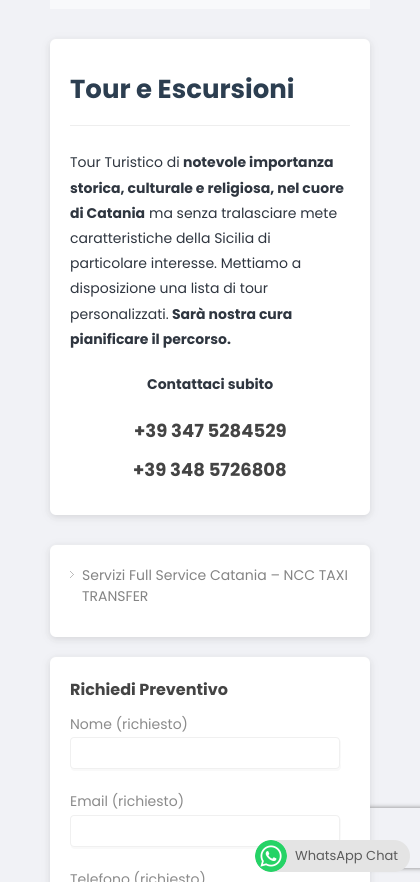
#include <cairo.h>
#include <math.h>
#include <stddef.h>

typedef struct { const char *family; double size; int italic, bold; unsigned color; } style_t;
static cairo_t *ctx;

static void ink(unsigned color) {
    cairo_set_source_rgb(ctx, (color >> 16) / 255.0, (color >> 8 & 255) / 255.0, (color & 255) / 255.0);
}

static void write(double x, double y, const char *s, const style_t *st) {
    cairo_select_font_face(ctx, st->family, st->italic ? CAIRO_FONT_SLANT_ITALIC : CAIRO_FONT_SLANT_NORMAL,
        st->bold ? CAIRO_FONT_WEIGHT_BOLD : CAIRO_FONT_WEIGHT_NORMAL);
    cairo_set_font_size(ctx, st->size);
    ink(st->color);
    cairo_move_to(ctx, x, y);
    cairo_show_text(ctx, s);
}

static void block(double x, double y, double w, double h, unsigned color) {
    ink(color);
    cairo_rectangle(ctx, x, y, w, h);
    cairo_fill(ctx);
}

static void round_path(double x, double y, double w, double h, double r) {
    cairo_new_sub_path(ctx);
    cairo_arc(ctx, x + w - r, y + h - r, r, 0, M_PI / 2);
    cairo_arc(ctx, x + r, y + h - r, r, M_PI / 2, M_PI);
    cairo_arc(ctx, x + r, y + r, r, M_PI, 1.5 * M_PI);
    cairo_arc(ctx, x + w - r, y + r, r, 1.5 * M_PI, 2 * M_PI);
    cairo_close_path(ctx);
}

static void blur_box(double x, double y, double w, double h, double r, double blur, double alpha) {
    cairo_push_group_with_content(ctx, CAIRO_CONTENT_ALPHA);
    cairo_set_operator(ctx, CAIRO_OPERATOR_SOURCE);
    for (int i = 15; i >= -15 && fmin(w, h) + blur * i / 3 > 0; i -= 2) {
        double e = blur * i / 6;
        cairo_set_source_rgba(ctx, 0, 0, 0, alpha * erfc((i - 1) / 8.5) / 2);
        round_path(x - e, y - e, w + 2 * e, h + 2 * e, fmax(0, fmin(r + e + blur * .6, fmin(w, h) / 2 + e)));
        cairo_fill(ctx);
    }
    cairo_pattern_t *soft = cairo_pop_group(ctx);
    cairo_mask(ctx, soft);
    cairo_pattern_destroy(soft);
}

static void paste(const char *path, double x, double y, double w, double h) {
    cairo_surface_t *image = cairo_image_surface_create_from_png(path);
    cairo_save(ctx);
    cairo_set_source_surface(ctx, image, x, y);
    cairo_rectangle(ctx, x, y, w, h);
    cairo_fill(ctx);
    cairo_restore(ctx);
    cairo_surface_destroy(image);
}

static const style_t s1 = {"Poppins", 26, 0, 1, 0x2c3e50};
static const style_t s2 = {"Poppins", 14, 0, 0, 0x2f3640};
static const style_t s3 = {"Poppins", 14, 0, 1, 0x2f3640};
static const style_t s4 = {"Poppins", 18, 0, 1, 0x444444};
static const style_t s5 = {"Poppins", 14, 0, 0, 0x848484};
static const style_t s6 = {"Poppins", 16, 0, 1, 0x444444};
static const style_t s7 = {"Poppins", 14, 0, 0, 0x8b8b8b};
static const style_t s8 = {"Poppins", 13, 0, 0, 0x5b5b5b};

int main(void) {
    cairo_surface_t *surface = cairo_image_surface_create(CAIRO_FORMAT_RGB24, 420, 882);
    ctx = cairo_create(surface);
    cairo_font_options_t *options = cairo_font_options_create();
    cairo_font_options_set_hint_metrics(options, CAIRO_HINT_METRICS_OFF);
    cairo_font_options_set_hint_style(options, CAIRO_HINT_STYLE_NONE);
    cairo_set_font_options(ctx, options);
    cairo_set_miter_limit(ctx, 4);
    ink(0xf1f2f6);
    cairo_paint(ctx);
    block(50, 0, 320, 9, 0xf8f9fb);
    ink(0x636363);
    blur_box(50, 41, 320, 476, 6, 4, 0.2);
    ink(0xffffff);
    round_path(50, 39, 320, 476, 6);
    cairo_fill(ctx);
    write(70, 98, "Tour e Escursioni", &s1);
    block(70, 125, 280, 1, 0xeeeeee);
    write(70, 167, "Tour Turistico di", &s2);
    write(183, 167, "notevole importanza", &s3);
    write(70, 193, "storica, culturale e religiosa, nel cuore", &s3);
    write(70, 218, "di Catania", &s3);
    write(149, 218, "ma senza tralasciare mete", &s2);
    write(70, 243, "caratteristiche della Sicilia di", &s2);
    write(70, 268, "particolare interesse. Mettiamo a", &s2);
    write(70, 293, "disposizione una lista di tour", &s2);
    write(70, 319, "personalizzati.", &s2);
    write(172, 319, "Sarà nostra cura", &s3);
    write(70, 344, "pianificare il percorso.", &s3);
    write(147, 389, "Contattaci subito", &s3);
    write(134, 437, "+39 347 5284529", &s4);
    write(133, 476, "+39 348 5726808", &s4);
    ink(0x636363);
    blur_box(50, 547, 320, 92, 6, 4, 0.2);
    ink(0xffffff);
    round_path(50, 545, 320, 92, 6);
    cairo_fill(ctx);
    paste("pic1.png", 70, 571, 4, 7);
    write(82, 580, "Servizi Full Service Catania – NCC TAXI", &s5);
    write(82, 601, "TRANSFER", &s5);
    ink(0x636363);
    blur_box(50, 659, 320, 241, 6, 4, 0.2);
    cairo_save(ctx);
    cairo_set_fill_rule(ctx, CAIRO_FILL_RULE_EVEN_ODD);
    cairo_new_path(ctx);
    cairo_move_to(ctx, 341, 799);
    cairo_line_to(ctx, 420, 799);
    cairo_line_to(ctx, 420, 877);
    cairo_line_to(ctx, 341, 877);
    cairo_close_path(ctx);
    cairo_move_to(ctx, 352, 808);
    cairo_line_to(ctx, 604, 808);
    cairo_curve_to(ctx, 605, 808, 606, 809, 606, 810);
    cairo_line_to(ctx, 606, 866);
    cairo_curve_to(ctx, 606, 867, 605, 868, 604, 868);
    cairo_line_to(ctx, 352, 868);
    cairo_curve_to(ctx, 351, 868, 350, 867, 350, 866);
    cairo_line_to(ctx, 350, 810);
    cairo_curve_to(ctx, 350, 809, 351, 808, 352, 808);
    cairo_close_path(ctx);
    cairo_clip(ctx);
    ink(0x808080);
    blur_box(350, 808, 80, 60, 2, 2.5, 1);
    cairo_restore(ctx);
    ink(0xffffff);
    round_path(50, 657, 320, 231, 6);
    cairo_fill(ctx);
    write(70, 695, "Richiedi Preventivo", &s6);
    write(70, 729, "Nome (richiesto)", &s7);
    ink(0xf9f9f9);
    cairo_new_path(ctx);
    cairo_move_to(ctx, 71, 768);
    cairo_curve_to(ctx, 71, 770, 73, 771, 75, 771);
    cairo_line_to(ctx, 337, 771);
    cairo_curve_to(ctx, 339, 771, 341, 769, 341, 767);
    cairo_line_to(ctx, 341, 743);
    cairo_curve_to(ctx, 341, 742, 341, 741, 340, 740);
    cairo_line_to(ctx, 340, 757);
    cairo_curve_to(ctx, 340, 760, 342, 769, 336, 769);
    cairo_line_to(ctx, 74, 769);
    cairo_close_path(ctx);
    cairo_fill(ctx);
    round_path(70.5, 737.5, 269, 31, 3.5);
    ink(0xf0f0f0);
    cairo_set_line_width(ctx, 1);
    cairo_stroke(ctx);
    write(70, 806, "Email (richiesto)", &s7);
    ink(0xf9f9f9);
    cairo_new_path(ctx);
    cairo_move_to(ctx, 71, 846);
    cairo_curve_to(ctx, 71, 848, 73, 849, 75, 849);
    cairo_line_to(ctx, 337, 849);
    cairo_curve_to(ctx, 339, 849, 341, 847, 341, 845);
    cairo_line_to(ctx, 341, 821);
    cairo_curve_to(ctx, 341, 820, 341, 819, 340, 818);
    cairo_line_to(ctx, 340, 835);
    cairo_curve_to(ctx, 340, 838, 342, 847, 336, 847);
    cairo_line_to(ctx, 74, 847);
    cairo_close_path(ctx);
    cairo_fill(ctx);
    round_path(70.5, 815.5, 269, 31, 3.5);
    ink(0xf0f0f0);
    cairo_stroke(ctx);
    write(70, 884, "Telefono (richiesto)", &s7);
    ink(0xe4e4e4);
    round_path(255, 840, 155, 32, 16);
    cairo_fill(ctx);
    paste("pic2.png", 255, 840, 32, 32);
    write(295, 860, "WhatsApp Chat", &s8);
    cairo_surface_write_to_png(surface, "screenshot.png");
    cairo_font_options_destroy(options);
    cairo_destroy(ctx);
    cairo_surface_destroy(surface);
    return 0;
}
